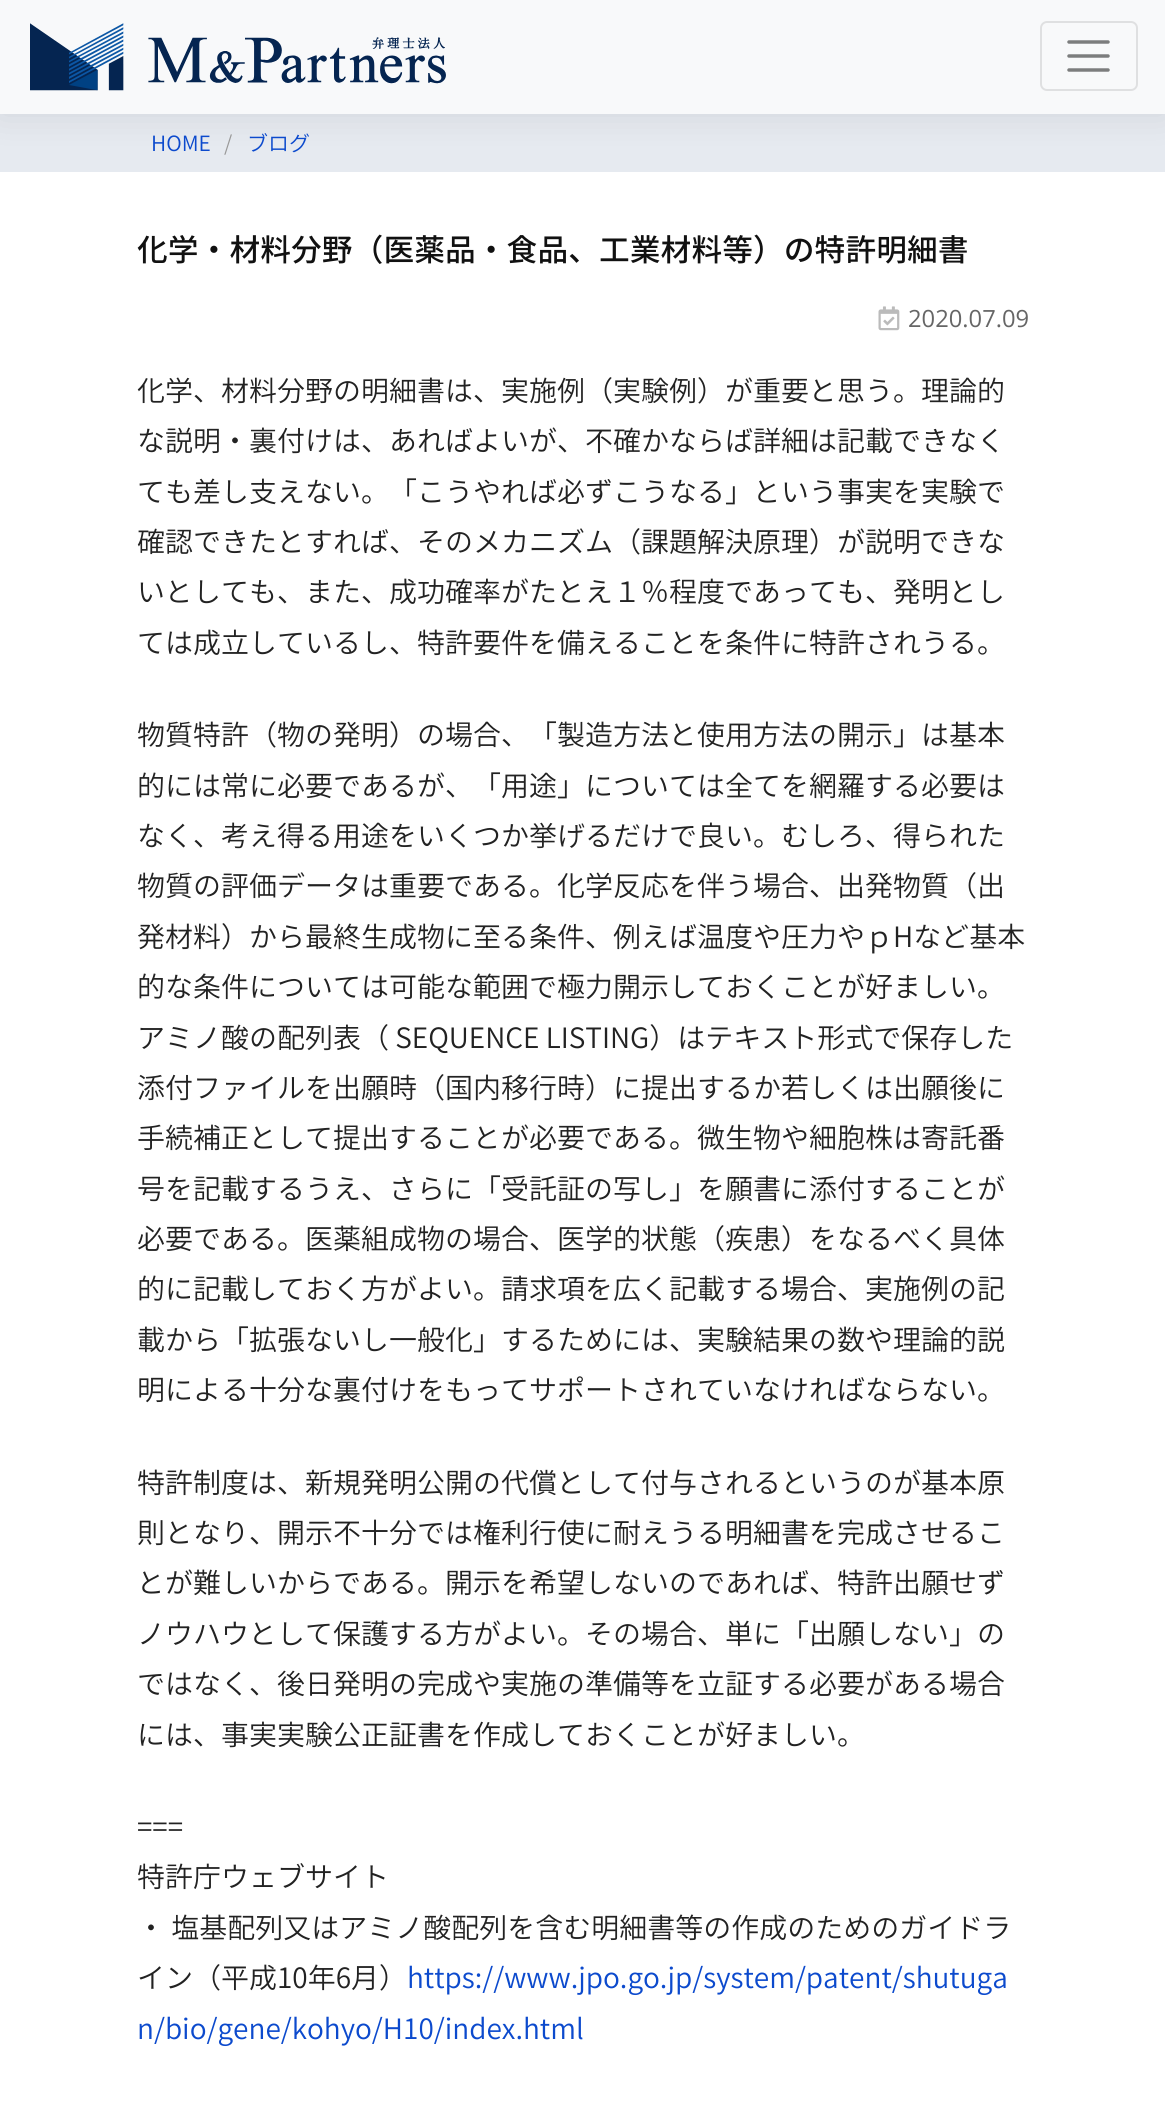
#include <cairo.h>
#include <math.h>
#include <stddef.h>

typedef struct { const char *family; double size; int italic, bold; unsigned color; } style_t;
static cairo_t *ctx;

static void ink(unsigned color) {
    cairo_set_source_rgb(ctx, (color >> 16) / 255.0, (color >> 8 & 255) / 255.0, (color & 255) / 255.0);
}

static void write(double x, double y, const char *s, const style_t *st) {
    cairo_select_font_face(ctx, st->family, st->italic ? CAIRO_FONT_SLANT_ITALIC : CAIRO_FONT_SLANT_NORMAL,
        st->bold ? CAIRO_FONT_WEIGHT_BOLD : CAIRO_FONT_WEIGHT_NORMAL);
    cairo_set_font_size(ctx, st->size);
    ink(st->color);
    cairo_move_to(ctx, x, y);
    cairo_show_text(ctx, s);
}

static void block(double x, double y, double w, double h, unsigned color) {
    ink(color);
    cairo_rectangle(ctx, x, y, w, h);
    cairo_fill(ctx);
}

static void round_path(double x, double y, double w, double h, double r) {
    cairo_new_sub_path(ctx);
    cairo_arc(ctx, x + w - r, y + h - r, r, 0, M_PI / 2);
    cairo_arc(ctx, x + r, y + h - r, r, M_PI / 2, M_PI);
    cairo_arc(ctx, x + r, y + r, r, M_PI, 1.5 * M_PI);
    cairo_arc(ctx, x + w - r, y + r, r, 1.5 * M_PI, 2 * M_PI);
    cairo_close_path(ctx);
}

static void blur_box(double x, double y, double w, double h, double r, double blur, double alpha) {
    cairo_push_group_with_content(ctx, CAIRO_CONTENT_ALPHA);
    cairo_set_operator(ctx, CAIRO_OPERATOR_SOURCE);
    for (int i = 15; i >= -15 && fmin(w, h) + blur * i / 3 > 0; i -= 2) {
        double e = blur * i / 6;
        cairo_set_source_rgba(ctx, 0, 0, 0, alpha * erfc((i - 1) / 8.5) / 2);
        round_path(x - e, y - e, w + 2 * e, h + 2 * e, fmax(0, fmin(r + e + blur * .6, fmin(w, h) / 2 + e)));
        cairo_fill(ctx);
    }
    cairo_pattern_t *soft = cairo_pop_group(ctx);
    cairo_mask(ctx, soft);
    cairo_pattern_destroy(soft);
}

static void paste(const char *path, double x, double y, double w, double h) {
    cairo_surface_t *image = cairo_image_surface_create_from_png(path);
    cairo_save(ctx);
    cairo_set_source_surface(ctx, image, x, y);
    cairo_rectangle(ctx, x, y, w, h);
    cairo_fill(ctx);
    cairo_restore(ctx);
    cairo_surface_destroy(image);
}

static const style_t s1 = {"Noto Sans JP Light", 21, 0, 0, 0x0c4acd};
static const style_t s2 = {"Noto Sans JP Light", 21, 0, 0, 0x999999};
static const style_t s3 = {"Noto Sans JP Medium", 30.8, 0, 0, 0x111111};
static const style_t s4 = {"Open Sans", 23.75, 0, 0, 0x666666};
static const style_t s5 = {"Noto Sans JP Light", 28, 0, 0, 0x222222};
static const style_t s6 = {"Noto Sans JP Light", 28, 0, 0, 0x0c4acd};

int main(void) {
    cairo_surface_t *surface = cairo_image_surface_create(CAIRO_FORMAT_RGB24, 1165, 2107);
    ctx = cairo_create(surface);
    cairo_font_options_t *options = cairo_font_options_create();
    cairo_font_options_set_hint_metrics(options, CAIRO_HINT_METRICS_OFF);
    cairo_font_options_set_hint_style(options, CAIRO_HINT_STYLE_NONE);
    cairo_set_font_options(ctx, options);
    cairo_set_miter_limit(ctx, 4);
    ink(0xffffff);
    cairo_paint(ctx);
    block(0, 114, 1165, 58, 0xe6eaf0);
    ink(0x000000);
    blur_box(0, 0, 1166, 114, 0, 17.5, 0.1);
    block(0, 0, 1165, 114, 0xf8f9fa);
    paste("pic1.png", 30, 23, 416, 68);
    round_path(1041, 22, 96, 68, 6);
    ink(0xdfe0e1);
    cairo_stroke(ctx);
    cairo_new_path(ctx);
    cairo_move_to(ctx, 1069, 42);
    cairo_line_to(ctx, 1108, 42);
    cairo_move_to(ctx, 1069, 56);
    cairo_line_to(ctx, 1108, 56);
    cairo_move_to(ctx, 1069, 70);
    cairo_line_to(ctx, 1108, 70);
    ink(0x7c7d7d);
    cairo_set_line_width(ctx, 3.5);
    cairo_set_line_cap(ctx, CAIRO_LINE_CAP_ROUND);
    cairo_stroke(ctx);
    write(151, 151, "HOME", &s1);
    write(224, 151, "/", &s2);
    write(247, 151, "ブログ", &s1);
    write(137, 261, "化学・材料分野（医薬品・食品、工業材料等）の特許明細書", &s3);
    paste("pic2.png", 878, 306, 22, 25);
    write(908, 327, "2020.07.09", &s4);
    write(137, 401, "化学、材料分野の明細書は、実施例（実験例）が重要と思う。理論的", &s5);
    write(137, 451, "な説明・裏付けは、あればよいが、不確かならば詳細は記載できなく", &s5);
    write(137, 502, "ても差し支えない。「こうやれば必ずこうなる」という事実を実験で", &s5);
    write(137, 552, "確認できたとすれば、そのメカニズム（課題解決原理）が説明できな", &s5);
    write(137, 602, "いとしても、また、成功確率がたとえ１％程度であっても、発明とし", &s5);
    write(137, 653, "ては成立しているし、特許要件を備えることを条件に特許されうる。", &s5);
    write(137, 745, "物質特許（物の発明）の場合、「製造方法と使用方法の開示」は基本", &s5);
    write(137, 796, "的には常に必要であるが、「用途」については全てを網羅する必要は", &s5);
    write(137, 846, "なく、考え得る用途をいくつか挙げるだけで良い。むしろ、得られた", &s5);
    write(137, 896, "物質の評価データは重要である。化学反応を伴う場合、出発物質（出", &s5);
    write(137, 947, "発材料）から最終生成物に至る条件、例えば温度や圧力やｐHなど基本", &s5);
    write(137, 997, "的な条件については可能な範囲で極力開示しておくことが好ましい。", &s5);
    write(137, 1048, "アミノ酸の配列表（ SEQUENCE LISTING）はテキスト形式で保存した", &s5);
    write(137, 1098, "添付ファイルを出願時（国内移行時）に提出するか若しくは出願後に", &s5);
    write(137, 1148, "手続補正として提出することが必要である。微生物や細胞株は寄託番", &s5);
    write(137, 1199, "号を記載するうえ、さらに「受託証の写し」を願書に添付することが", &s5);
    write(137, 1249, "必要である。医薬組成物の場合、医学的状態（疾患）をなるべく具体", &s5);
    write(137, 1299, "的に記載しておく方がよい。請求項を広く記載する場合、実施例の記", &s5);
    write(137, 1350, "載から「拡張ないし一般化」するためには、実験結果の数や理論的説", &s5);
    write(137, 1400, "明による十分な裏付けをもってサポートされていなければならない。", &s5);
    write(137, 1493, "特許制度は、新規発明公開の代償として付与されるというのが基本原", &s5);
    write(137, 1543, "則となり、開示不十分では権利行使に耐えうる明細書を完成させるこ", &s5);
    write(137, 1593, "とが難しいからである。開示を希望しないのであれば、特許出願せず", &s5);
    write(137, 1644, "ノウハウとして保護する方がよい。その場合、単に「出願しない」の", &s5);
    write(137, 1694, "ではなく、後日発明の完成や実施の準備等を立証する必要がある場合", &s5);
    write(137, 1745, "には、事実実験公正証書を作成しておくことが好ましい。", &s5);
    write(137, 1837, "===", &s5);
    write(137, 1887, "特許庁ウェブサイト", &s5);
    write(137, 1938, "・ 塩基配列又はアミノ酸配列を含む明細書等の作成のためのガイドラ", &s5);
    write(137, 1988, "イン（平成10年6月）", &s5);
    write(407, 1988, "https://www.jpo.go.jp/system/patent/shutuga", &s6);
    write(137, 2039, "n/bio/gene/kohyo/H10/index.html", &s6);
    cairo_surface_write_to_png(surface, "screenshot.png");
    cairo_font_options_destroy(options);
    cairo_destroy(ctx);
    cairo_surface_destroy(surface);
    return 0;
}
